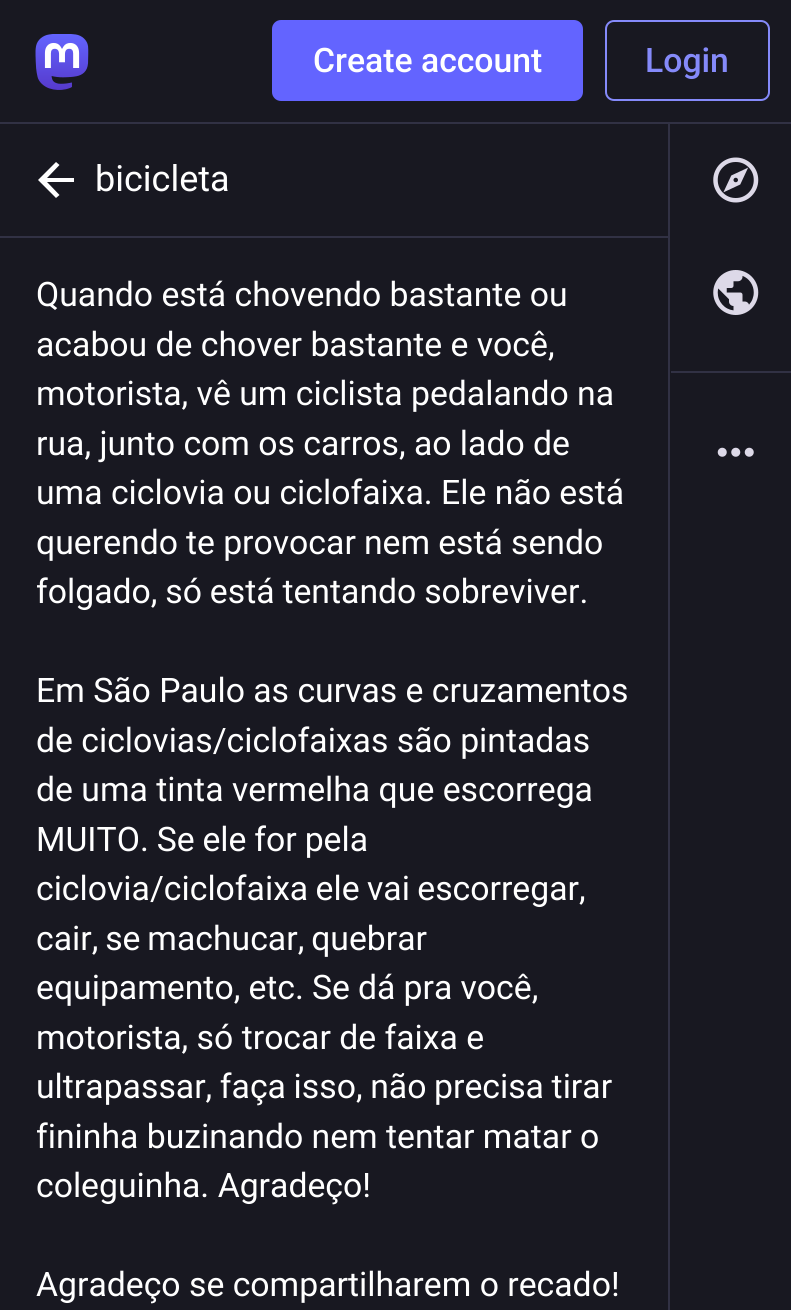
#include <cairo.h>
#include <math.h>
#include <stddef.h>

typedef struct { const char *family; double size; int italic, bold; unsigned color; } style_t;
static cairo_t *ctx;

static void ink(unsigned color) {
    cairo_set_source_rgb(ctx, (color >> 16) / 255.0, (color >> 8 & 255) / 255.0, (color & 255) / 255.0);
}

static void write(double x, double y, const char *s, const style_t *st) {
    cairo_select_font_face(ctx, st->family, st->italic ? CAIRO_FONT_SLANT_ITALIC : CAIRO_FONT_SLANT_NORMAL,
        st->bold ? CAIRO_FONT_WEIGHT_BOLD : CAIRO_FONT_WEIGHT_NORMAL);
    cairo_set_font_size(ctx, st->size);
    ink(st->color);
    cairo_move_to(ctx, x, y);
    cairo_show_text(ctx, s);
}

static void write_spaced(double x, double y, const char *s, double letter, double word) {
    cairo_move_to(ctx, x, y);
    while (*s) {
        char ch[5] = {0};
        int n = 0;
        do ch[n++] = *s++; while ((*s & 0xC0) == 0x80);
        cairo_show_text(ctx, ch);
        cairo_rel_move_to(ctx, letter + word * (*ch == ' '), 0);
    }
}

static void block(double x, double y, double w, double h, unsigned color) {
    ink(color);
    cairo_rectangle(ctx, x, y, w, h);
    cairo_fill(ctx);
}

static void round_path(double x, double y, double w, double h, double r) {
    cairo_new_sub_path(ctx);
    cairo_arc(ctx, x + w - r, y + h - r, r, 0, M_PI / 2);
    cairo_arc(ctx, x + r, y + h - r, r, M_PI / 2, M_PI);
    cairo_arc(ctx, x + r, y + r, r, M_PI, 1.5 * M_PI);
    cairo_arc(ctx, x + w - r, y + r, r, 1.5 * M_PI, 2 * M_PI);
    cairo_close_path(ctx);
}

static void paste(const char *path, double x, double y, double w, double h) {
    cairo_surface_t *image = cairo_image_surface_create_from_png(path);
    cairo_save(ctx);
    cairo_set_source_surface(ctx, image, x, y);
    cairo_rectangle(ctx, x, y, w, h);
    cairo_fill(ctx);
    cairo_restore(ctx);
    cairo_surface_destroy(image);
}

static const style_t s1 = {"Roboto Medium", 33.75, 0, 0, 0xffffff};
static const style_t s2 = {"Roboto Medium", 33.75, 0, 0, 0x858afa};
static const style_t s3 = {"Roboto", 36, 0, 0, 0xffffff};
static const style_t s4 = {"Roboto", 33.75, 0, 0, 0xffffff};

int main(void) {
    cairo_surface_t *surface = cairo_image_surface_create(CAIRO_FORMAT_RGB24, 791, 1310);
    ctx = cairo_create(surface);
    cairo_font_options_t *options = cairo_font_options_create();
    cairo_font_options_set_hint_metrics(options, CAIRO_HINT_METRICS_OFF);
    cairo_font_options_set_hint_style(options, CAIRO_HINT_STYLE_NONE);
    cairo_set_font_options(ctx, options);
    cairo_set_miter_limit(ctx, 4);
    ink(0x181821);
    cairo_paint(ctx);
    block(0, 122, 791, 2, 0x313144);
    paste("pic1.png", 35, 34, 54, 56);
    ink(0x6364ff);
    round_path(272, 20, 311, 81, 9);
    cairo_fill(ctx);
    write(313, 72, "Create account", &s1);
    round_path(606, 21, 163, 79, 8);
    ink(0x858afa);
    cairo_stroke(ctx);
    write(645, 72, "Login", &s2);
    block(0, 236, 668, 2, 0x313144);
    ink(0xffffff);
    cairo_new_path(ctx);
    cairo_move_to(ctx, 47, 182);
    cairo_line_to(ctx, 59.5, 195);
    cairo_line_to(ctx, 56, 198);
    cairo_line_to(ctx, 38, 180);
    cairo_line_to(ctx, 56, 162);
    cairo_line_to(ctx, 59.5, 165);
    cairo_line_to(ctx, 47, 178);
    cairo_line_to(ctx, 74, 178);
    cairo_line_to(ctx, 74, 182);
    cairo_close_path(ctx);
    cairo_fill(ctx);
    write(95, 191, "bicicleta", &s3);
    write(36, 306, "Quando está chovendo bastante ou", &s4);
    write(36, 356, "acabou de chover bastante e você,", &s4);
    write(36, 405, "motorista, vê um ciclista pedalando na", &s4);
    write(36, 455, "rua, junto com os carros, ao lado de", &s4);
    write(36, 504, "uma ciclovia ou ciclofaixa. Ele não está", &s4);
    write_spaced(36, 554, "querendo te provocar nem está sendo", 0, -0.25);
    write_spaced(36, 603, "folgado, só está tentando sobreviver.", 0, -0.5);
    write(36, 702, "Em São Paulo as curvas e cruzamentos", &s4);
    write(36, 752, "de ciclovias/ciclofaixas são pintadas", &s4);
    write(36, 801, "de uma tinta vermelha que escorrega", &s4);
    write_spaced(36, 851, "MUITO. Se ele for pela", 0, -0.5);
    write_spaced(36, 900, "ciclovia/ciclofaixa ele vai escorregar,", 0, -1);
    write_spaced(36, 950, "cair, se machucar, quebrar", 0, -1.5);
    write_spaced(36, 999, "equipamento, etc. Se dá pra você,", 0, -0.25);
    write(36, 1049, "motorista, só trocar de faixa e", &s4);
    write_spaced(36, 1098, "ultrapassar, faça isso, não precisa tirar", 0, -0.75);
    write(36, 1148, "fininha buzinando nem tentar matar o", &s4);
    write(36, 1197, "coleguinha. Agradeço!", &s4);
    write(36, 1296, "Agradeço se compartilharem o recado!", &s4);
    block(668, 124, 2, 1186, 0x313144);
    paste("pic2.png", 713, 157, 46, 46);
    paste("pic3.png", 713, 270, 46, 45);
    block(671, 371, 120, 2, 0x313144);
    paste("pic4.png", 717, 447, 37, 10);
    cairo_surface_write_to_png(surface, "screenshot.png");
    cairo_font_options_destroy(options);
    cairo_destroy(ctx);
    cairo_surface_destroy(surface);
    return 0;
}
